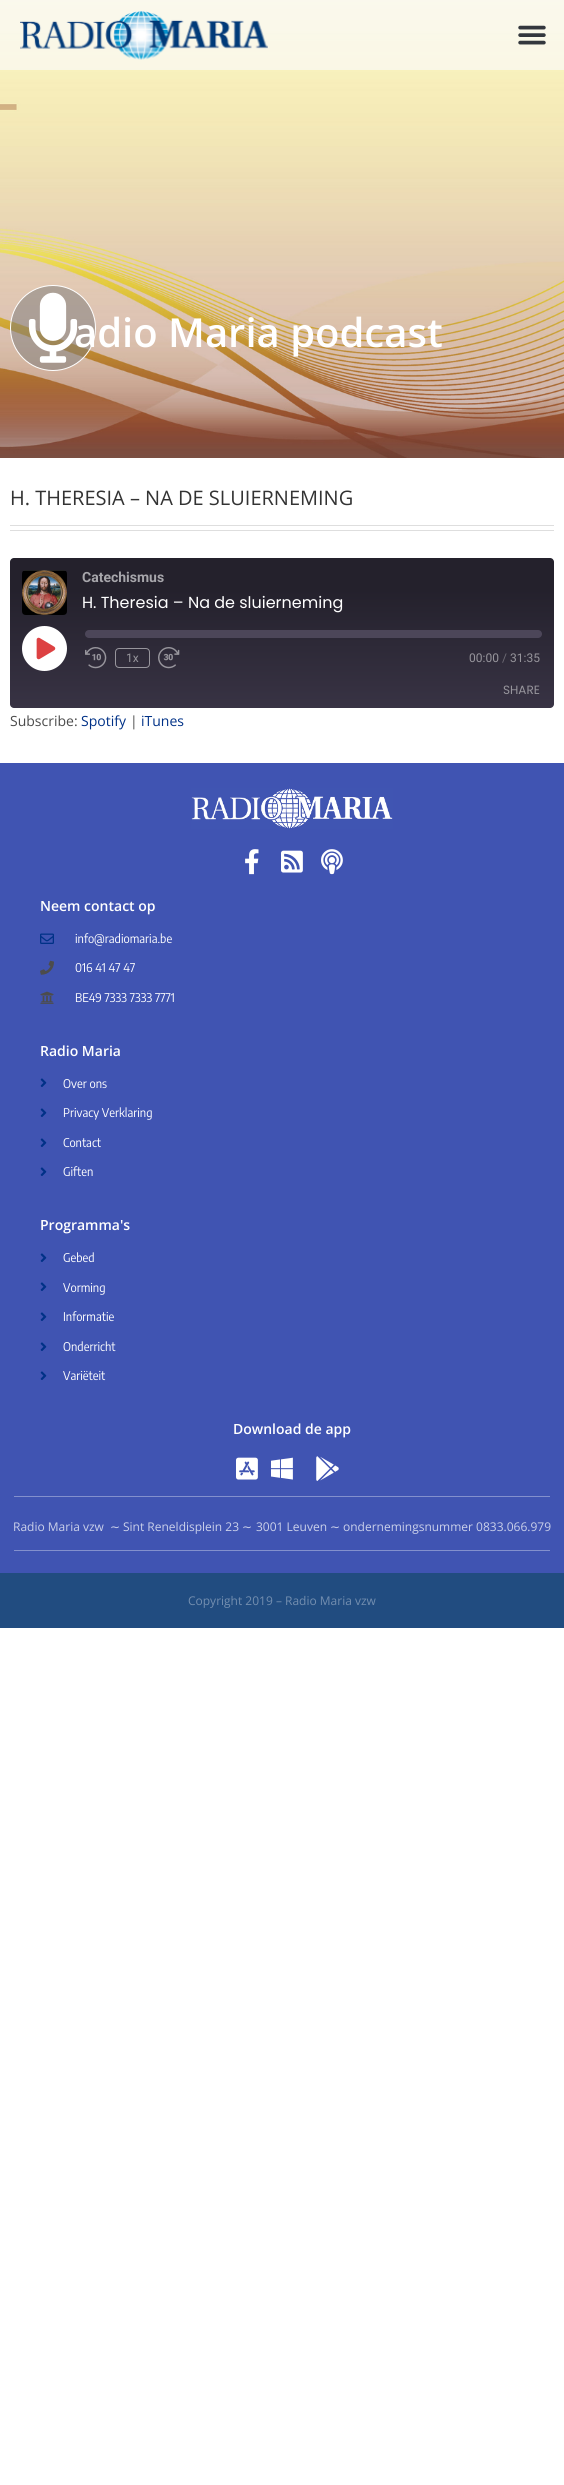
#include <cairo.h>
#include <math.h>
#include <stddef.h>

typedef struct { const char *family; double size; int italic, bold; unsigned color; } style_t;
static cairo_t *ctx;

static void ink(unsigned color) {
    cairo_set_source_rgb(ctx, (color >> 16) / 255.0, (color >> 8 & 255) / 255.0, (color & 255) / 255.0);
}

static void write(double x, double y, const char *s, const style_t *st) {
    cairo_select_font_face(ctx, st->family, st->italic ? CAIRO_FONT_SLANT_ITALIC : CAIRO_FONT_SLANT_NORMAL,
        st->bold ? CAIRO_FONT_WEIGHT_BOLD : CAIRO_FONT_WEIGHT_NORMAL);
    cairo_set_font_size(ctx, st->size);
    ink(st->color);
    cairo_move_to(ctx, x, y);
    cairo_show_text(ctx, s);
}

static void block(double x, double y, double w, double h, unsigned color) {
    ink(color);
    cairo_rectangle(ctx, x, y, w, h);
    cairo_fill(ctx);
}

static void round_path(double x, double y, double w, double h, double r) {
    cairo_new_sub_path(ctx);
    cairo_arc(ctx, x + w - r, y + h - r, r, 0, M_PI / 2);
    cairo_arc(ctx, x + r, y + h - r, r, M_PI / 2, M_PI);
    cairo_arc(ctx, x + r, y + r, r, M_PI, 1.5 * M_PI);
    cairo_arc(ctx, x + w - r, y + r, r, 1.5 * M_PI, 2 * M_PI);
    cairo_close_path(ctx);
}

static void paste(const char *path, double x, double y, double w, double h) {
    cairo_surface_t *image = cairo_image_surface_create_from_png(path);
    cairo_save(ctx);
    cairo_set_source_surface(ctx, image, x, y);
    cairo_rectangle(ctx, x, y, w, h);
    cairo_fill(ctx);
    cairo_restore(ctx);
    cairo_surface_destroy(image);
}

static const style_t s1 = {"Open Sans SemiBold", 40, 0, 0, 0xffffff};
static const style_t s2 = {"Open Sans", 20, 0, 0, 0x333333};
static const style_t s3 = {"Roboto", 14, 0, 1, 0xa7a6ab};
static const style_t s4 = {"Poppins", 16, 0, 0, 0xffffff};
static const style_t s5 = {"Roboto", 12, 0, 0, 0x97959c};
static const style_t s6 = {"Roboto", 12, 0, 0, 0x6e6b75};
static const style_t s7 = {"Poppins", 12, 0, 0, 0x97959c};
static const style_t s8 = {"Open Sans", 14, 0, 0, 0x4c4c4c};
static const style_t s9 = {"Open Sans", 14, 0, 0, 0x003187};
static const style_t s10 = {"Open Sans SemiBold", 14, 0, 0, 0xffffff};
static const style_t s11 = {"Encode Sans Semi Condensed", 12, 0, 0, 0xffffff};
static const style_t s12 = {"Open Sans", 12, 0, 0, 0xcbd1ea};
static const style_t s13 = {"DejaVu Sans", 12, 0, 0, 0xcbd1ea};
static const style_t s14 = {"Open Sans", 12, 0, 0, 0x738eaf};

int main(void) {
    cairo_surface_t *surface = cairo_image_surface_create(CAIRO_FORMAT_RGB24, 564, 2485);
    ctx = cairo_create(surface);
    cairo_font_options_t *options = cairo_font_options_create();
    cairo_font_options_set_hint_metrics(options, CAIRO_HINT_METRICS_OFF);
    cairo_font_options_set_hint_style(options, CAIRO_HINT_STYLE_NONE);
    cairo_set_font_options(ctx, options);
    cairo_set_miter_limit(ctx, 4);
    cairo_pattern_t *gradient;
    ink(0xffffff);
    cairo_paint(ctx);
    paste("pic3.png", 0, 0, 564, 458);
    cairo_set_source_rgba(ctx, 0.98, 0.98, 0.98, 0.65);
    cairo_rectangle(ctx, 0, 0, 564, 70);
    cairo_fill(ctx);
    paste("pic1.png", 20, 11, 248, 49);
    paste("pic2.png", 518, 25, 28, 20);
    cairo_set_source_rgba(ctx, 0.478, 0.478, 0.478, 0.5);
    cairo_arc(ctx, 53, 328, 42.5, 0, 2 * M_PI);
    cairo_fill_preserve(ctx);
    ink(0xffffff);
    cairo_set_line_width(ctx, 1);
    cairo_stroke(ctx);
    paste("pic4.png", 28, 292, 50, 71);
    write(74, 347, "adio Maria podcast", &s1);
    write(10, 505, "H. THERESIA – NA DE SLUIERNEMING", &s2);
    block(10, 525, 544, 1, 0xdedede);
    block(10, 530, 544, 1, 0xdedede);
    gradient = cairo_pattern_create_linear(282, 710, 282, 556);
    cairo_pattern_add_color_stop_rgba(gradient, 0.01, 0.22, 0.2, 0.267, 1);
    cairo_pattern_add_color_stop_rgba(gradient, 0.78, 0.141, 0.129, 0.173, 1);
    cairo_set_source(ctx, gradient);
    cairo_pattern_destroy(gradient);
    round_path(10, 558, 544, 150, 4);
    cairo_fill(ctx);
    paste("pic5.png", 22, 570, 45, 45);
    write(82, 582, "Catechismus", &s3);
    write(82, 608, "H. Theresia – Na de sluierneming", &s4);
    cairo_new_path(ctx);
    cairo_arc(ctx, 44.5, 648.5, 22.5, 0, 2 * M_PI);
    cairo_fill(ctx);
    paste("pic6.png", 36, 637, 20, 23);
    ink(0x4c4659);
    round_path(85, 630, 457, 8, 4);
    cairo_fill(ctx);
    paste("pic7.png", 85, 647, 22, 22);
    round_path(115.5, 648.5, 34, 19, 3.5);
    cairo_set_source_rgba(ctx, 1, 1, 1, 0.5);
    cairo_stroke(ctx);
    write(126, 662, "1x", &s5);
    paste("pic8.png", 158, 647, 22, 22);
    write(469, 662, "00:00", &s5);
    write(502, 662, "/", &s6);
    write(510, 662, "31:35", &s5);
    write(503, 694, "SHARE", &s7);
    write(10, 726, "Subscribe:", &s8);
    write(81, 726, "Spotify", &s9);
    write(130, 726, "|", &s8);
    write(141, 726, "iTunes", &s9);
    block(0, 763, 564, 810, 0x4054b2);
    paste("pic9.png", 191, 788, 202, 41);
    paste("pic10.png", 245, 849, 14, 26);
    paste("pic11.png", 281, 850, 22, 23);
    paste("pic12.png", 321, 849, 22, 26);
    write(40, 911, "Neem contact op", &s10);
    paste("pic13.png", 40, 933, 14, 11);
    write(75, 943, "info@radiomaria.be", &s11);
    paste("pic14.png", 40, 960, 14, 15);
    write(75, 972, "016 41 47 47", &s11);
    paste("pic15.png", 40, 991, 14, 13);
    write(75, 1002, "BE49 7333 7333 7771", &s11);
    write(40, 1056, "Radio Maria", &s10);
    paste("pic16.png", 40, 1078, 7, 9);
    write(63, 1088, "Over ons", &s11);
    paste("pic16.png", 40, 1108, 7, 9);
    write(63, 1117, "Privacy Verklaring", &s11);
    paste("pic16.png", 40, 1138, 7, 9);
    write(63, 1147, "Contact", &s11);
    paste("pic16.png", 40, 1167, 7, 9);
    write(63, 1176, "Giften", &s11);
    write(40, 1230, "Programma's", &s10);
    paste("pic16.png", 40, 1253, 7, 9);
    write(63, 1262, "Gebed", &s11);
    paste("pic16.png", 40, 1282, 7, 9);
    write(63, 1292, "Vorming", &s11);
    paste("pic16.png", 40, 1312, 7, 9);
    write(63, 1321, "Informatie", &s11);
    paste("pic16.png", 40, 1342, 7, 9);
    write(63, 1351, "Onderricht", &s11);
    paste("pic16.png", 40, 1371, 7, 9);
    write(63, 1380, "Variëteit", &s11);
    write(233, 1434, "Download de app", &s10);
    paste("pic17.png", 236, 1457, 22, 23);
    paste("pic18.png", 271, 1457, 22, 23);
    paste("pic19.png", 316, 1456, 23, 25);
    block(14, 1496, 536, 1, 0x8390cd);
    write(13, 1531, "Radio Maria vzw", &s12);
    write(110, 1531, "∼", &s13);
    write(123, 1531, "Sint Reneldisplein 23", &s12);
    write(242, 1531, "∼", &s13);
    write(256, 1531, "3001 Leuven", &s12);
    write(330, 1531, "∼", &s13);
    write(343, 1531, "ondernemingsnummer 0833.066.979", &s12);
    block(14, 1550, 536, 1, 0x8390cd);
    block(0, 1573, 564, 55, 0x214c80);
    write(188, 1605, "Copyright 2019 – Radio Maria vzw", &s14);
    cairo_surface_write_to_png(surface, "screenshot.png");
    cairo_font_options_destroy(options);
    cairo_destroy(ctx);
    cairo_surface_destroy(surface);
    return 0;
}
